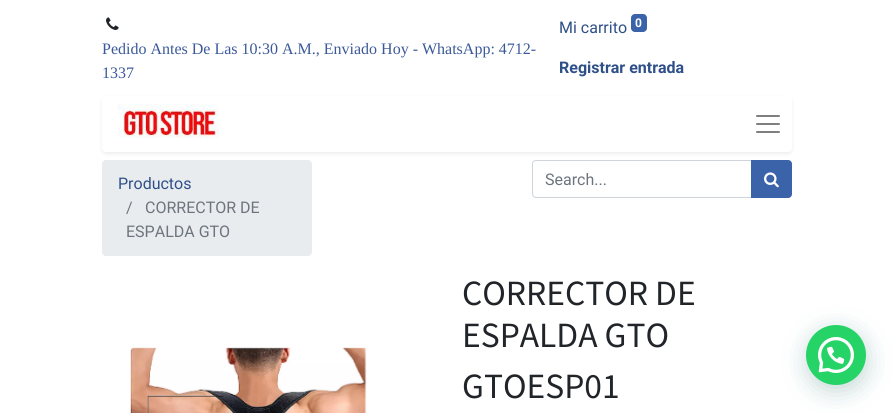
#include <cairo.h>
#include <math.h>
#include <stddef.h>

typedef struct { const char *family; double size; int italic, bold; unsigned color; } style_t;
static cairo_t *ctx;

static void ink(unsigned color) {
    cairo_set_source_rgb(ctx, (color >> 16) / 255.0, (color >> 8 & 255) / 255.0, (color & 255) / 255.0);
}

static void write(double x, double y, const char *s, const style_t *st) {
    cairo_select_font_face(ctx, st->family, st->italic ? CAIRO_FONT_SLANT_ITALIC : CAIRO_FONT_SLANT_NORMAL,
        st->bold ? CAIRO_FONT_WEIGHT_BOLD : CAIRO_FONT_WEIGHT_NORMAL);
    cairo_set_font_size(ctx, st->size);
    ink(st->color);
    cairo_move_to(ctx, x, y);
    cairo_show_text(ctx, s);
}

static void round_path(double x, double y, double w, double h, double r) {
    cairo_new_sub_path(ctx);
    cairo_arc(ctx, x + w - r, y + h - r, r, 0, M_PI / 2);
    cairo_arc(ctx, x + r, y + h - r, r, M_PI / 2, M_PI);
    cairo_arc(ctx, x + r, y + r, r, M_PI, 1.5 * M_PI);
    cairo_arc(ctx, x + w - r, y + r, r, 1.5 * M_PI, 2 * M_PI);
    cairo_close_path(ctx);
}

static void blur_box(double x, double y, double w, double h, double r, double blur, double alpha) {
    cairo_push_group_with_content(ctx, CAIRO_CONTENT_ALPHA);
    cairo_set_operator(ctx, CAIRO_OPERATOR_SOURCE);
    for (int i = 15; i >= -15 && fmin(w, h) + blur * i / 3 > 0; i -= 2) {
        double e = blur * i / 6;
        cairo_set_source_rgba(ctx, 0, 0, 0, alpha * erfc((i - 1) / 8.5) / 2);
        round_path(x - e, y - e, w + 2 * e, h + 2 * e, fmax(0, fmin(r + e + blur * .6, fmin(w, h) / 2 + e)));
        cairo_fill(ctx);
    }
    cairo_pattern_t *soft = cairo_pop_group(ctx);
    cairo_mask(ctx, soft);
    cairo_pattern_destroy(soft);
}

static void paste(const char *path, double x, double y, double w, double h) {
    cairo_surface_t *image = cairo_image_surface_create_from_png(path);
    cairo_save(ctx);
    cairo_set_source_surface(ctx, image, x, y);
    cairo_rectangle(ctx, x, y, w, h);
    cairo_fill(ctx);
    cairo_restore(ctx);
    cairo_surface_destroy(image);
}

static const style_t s1 = {"Liberation Serif", 16, 0, 0, 0x3b5999};
static const style_t s2 = {"Roboto", 16, 0, 0, 0x2e4f88};
static const style_t s3 = {"Roboto", 12, 0, 1, 0xffffff};
static const style_t s4 = {"Roboto", 16, 0, 1, 0x2e4f88};
static const style_t s5 = {"Roboto", 16, 0, 0, 0x6c757d};
static const style_t s6 = {"Source Sans Pro", 35.5, 0, 0, 0x212529};

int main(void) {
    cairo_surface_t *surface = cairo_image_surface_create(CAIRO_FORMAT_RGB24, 894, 413);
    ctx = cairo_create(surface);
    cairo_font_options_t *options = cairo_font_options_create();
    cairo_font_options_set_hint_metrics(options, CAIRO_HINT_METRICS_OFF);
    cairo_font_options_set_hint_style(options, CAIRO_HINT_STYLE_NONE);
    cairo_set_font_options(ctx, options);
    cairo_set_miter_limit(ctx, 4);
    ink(0xffffff);
    cairo_paint(ctx);
    paste("pic1.png", 106, 17, 13, 13);
    write(102, 54, "Pedido Antes De Las 10:30 A.M., Enviado Hoy - WhatsApp: 4712-", &s1);
    write(102, 78, "1337", &s1);
    write(559, 33, "Mi carrito", &s2);
    ink(0x3a63aa);
    round_path(631, 14, 16, 18, 4);
    cairo_fill(ctx);
    write(635, 27, "0", &s3);
    write(559, 73, "Registrar entrada", &s4);
    ink(0xe9ecef);
    round_path(102, 160, 210, 96, 4);
    cairo_fill(ctx);
    cairo_new_path(ctx);
    cairo_move_to(ctx, 536, 160.5);
    cairo_line_to(ctx, 751.5, 160.5);
    cairo_line_to(ctx, 751.5, 197.5);
    cairo_line_to(ctx, 536, 197.5);
    cairo_curve_to(ctx, 534, 197.5, 532.5, 196, 532.5, 194);
    cairo_line_to(ctx, 532.5, 164);
    cairo_curve_to(ctx, 532.5, 162, 534, 160.5, 536, 160.5);
    cairo_close_path(ctx);
    ink(0xced4da);
    cairo_set_line_width(ctx, 1);
    cairo_stroke(ctx);
    ink(0x3a63aa);
    cairo_new_path(ctx);
    cairo_move_to(ctx, 751.5, 160.5);
    cairo_line_to(ctx, 788, 160.5);
    cairo_curve_to(ctx, 790, 160.5, 791.5, 162, 791.5, 164);
    cairo_line_to(ctx, 791.5, 194);
    cairo_curve_to(ctx, 791.5, 196, 790, 197.5, 788, 197.5);
    cairo_line_to(ctx, 751.5, 197.5);
    cairo_close_path(ctx);
    cairo_fill_preserve(ctx);
    cairo_stroke(ctx);
    ink(0x000000);
    blur_box(102, 98, 690, 56, 4, 2, 0.07);
    ink(0xffffff);
    round_path(102, 96, 690, 56, 4);
    cairo_fill(ctx);
    paste("pic2.png", 118, 104, 101, 34);
    paste("pic3.png", 756, 115, 24, 18);
    write(118, 189, "Productos", &s2);
    write(126, 213, "/", &s5);
    write(145, 213, "CORRECTOR DE", &s5);
    write(126, 237, "ESPALDA GTO", &s5);
    write(545, 185, "Search...", &s5);
    paste("pic4.png", 764, 172, 15, 16);
    paste("pic5.png", 130, 347, 237, 66);
    write(462, 305, "CORRECTOR DE", &s6);
    write(462, 347, "ESPALDA GTO", &s6);
    write(462, 398, "GTOESP01", &s6);
    ink(0x075e54);
    blur_box(807, 331, 60, 60, 30, 12, 0.24);
    ink(0x25d366);
    cairo_arc(ctx, 836, 355, 30, 0, 2 * M_PI);
    cairo_fill(ctx);
    paste("pic6.png", 818, 337, 36, 36);
    cairo_surface_write_to_png(surface, "screenshot.png");
    cairo_font_options_destroy(options);
    cairo_destroy(ctx);
    cairo_surface_destroy(surface);
    return 0;
}
